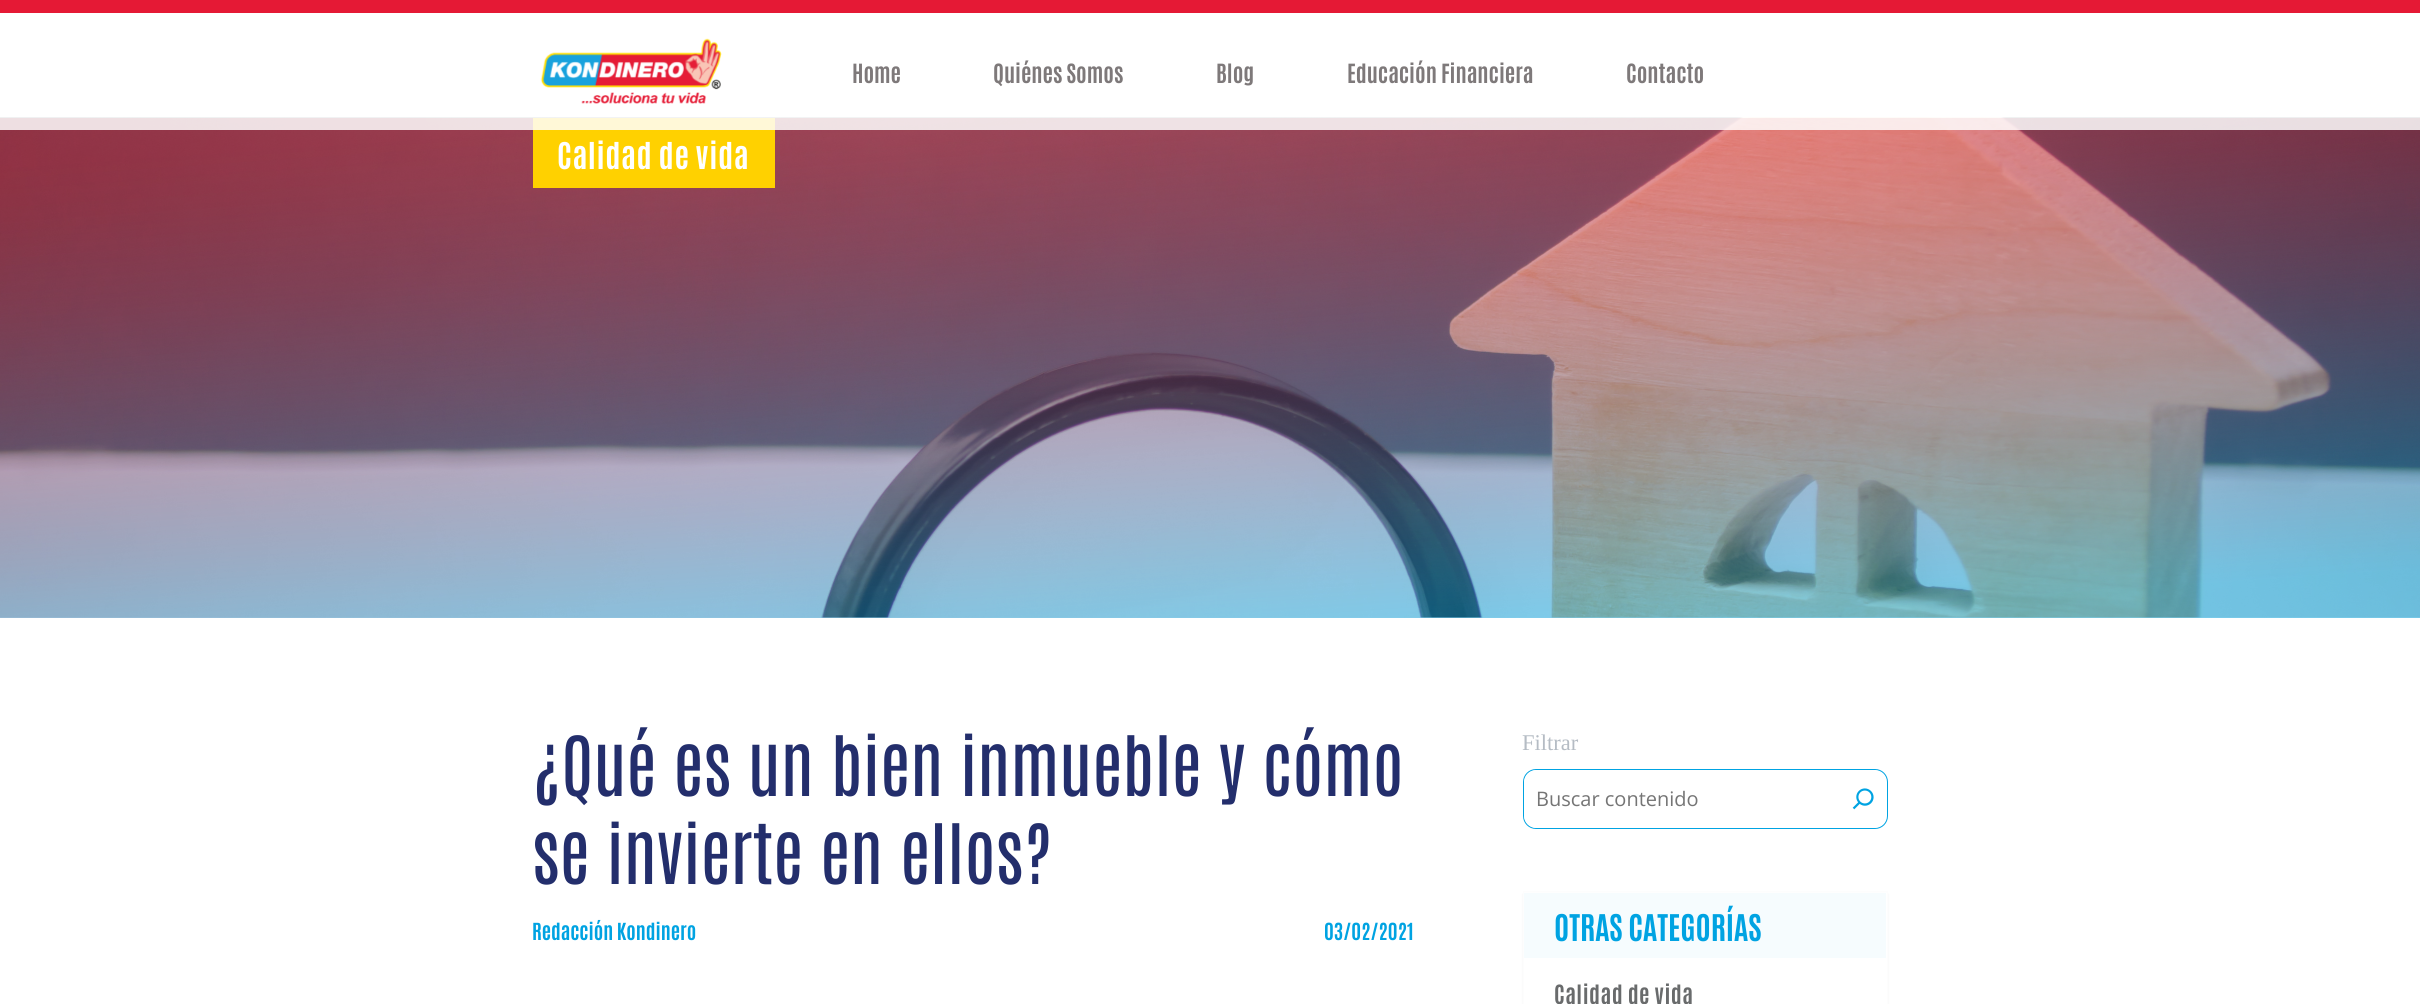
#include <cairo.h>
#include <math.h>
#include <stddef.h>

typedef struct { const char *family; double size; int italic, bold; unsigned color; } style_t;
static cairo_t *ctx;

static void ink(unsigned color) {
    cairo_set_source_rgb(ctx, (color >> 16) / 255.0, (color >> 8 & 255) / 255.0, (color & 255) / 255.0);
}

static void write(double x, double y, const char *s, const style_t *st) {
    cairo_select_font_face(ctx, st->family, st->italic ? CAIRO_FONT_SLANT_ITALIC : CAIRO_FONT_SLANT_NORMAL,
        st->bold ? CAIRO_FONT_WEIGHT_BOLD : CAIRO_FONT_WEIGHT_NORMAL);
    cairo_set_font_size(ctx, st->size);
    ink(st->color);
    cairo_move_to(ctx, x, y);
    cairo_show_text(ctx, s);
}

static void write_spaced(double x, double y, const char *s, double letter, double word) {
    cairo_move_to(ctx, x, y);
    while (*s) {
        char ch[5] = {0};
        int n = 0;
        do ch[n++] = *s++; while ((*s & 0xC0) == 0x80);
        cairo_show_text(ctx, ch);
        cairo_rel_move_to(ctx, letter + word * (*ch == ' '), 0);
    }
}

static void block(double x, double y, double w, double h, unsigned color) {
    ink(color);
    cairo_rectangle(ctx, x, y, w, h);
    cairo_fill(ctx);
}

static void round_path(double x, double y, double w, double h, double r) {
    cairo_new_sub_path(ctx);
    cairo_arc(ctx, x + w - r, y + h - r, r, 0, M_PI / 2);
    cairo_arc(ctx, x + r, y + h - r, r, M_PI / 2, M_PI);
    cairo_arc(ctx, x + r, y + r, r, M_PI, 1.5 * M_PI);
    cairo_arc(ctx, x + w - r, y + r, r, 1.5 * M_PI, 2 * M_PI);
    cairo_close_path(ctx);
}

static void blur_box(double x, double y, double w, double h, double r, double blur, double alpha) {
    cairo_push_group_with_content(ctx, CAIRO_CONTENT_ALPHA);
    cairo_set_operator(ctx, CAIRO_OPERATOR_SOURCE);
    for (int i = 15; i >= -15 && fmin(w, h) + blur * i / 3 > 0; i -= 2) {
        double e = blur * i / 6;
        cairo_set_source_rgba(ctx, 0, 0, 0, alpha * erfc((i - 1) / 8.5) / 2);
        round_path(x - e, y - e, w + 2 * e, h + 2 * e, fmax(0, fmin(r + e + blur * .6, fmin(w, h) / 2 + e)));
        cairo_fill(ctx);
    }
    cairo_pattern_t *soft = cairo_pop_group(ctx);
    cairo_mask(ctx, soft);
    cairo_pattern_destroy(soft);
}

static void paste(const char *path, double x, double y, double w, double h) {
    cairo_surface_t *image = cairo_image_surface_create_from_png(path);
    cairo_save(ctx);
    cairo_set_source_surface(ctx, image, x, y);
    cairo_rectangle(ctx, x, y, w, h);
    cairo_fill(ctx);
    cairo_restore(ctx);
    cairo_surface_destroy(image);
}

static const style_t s1 = {"Antonio", 22.5, 0, 1, 0x7e797a};
static const style_t s2 = {"Antonio", 70, 0, 0, 0x232e6c};
static const style_t s3 = {"Antonio", 20, 0, 1, 0x00a3e2};
static const style_t s4 = {"Liberation Serif", 22.5, 0, 0, 0xb5bcc4};
static const style_t s5 = {"Open Sans", 20, 0, 0, 0x757575};
static const style_t s6 = {"Antonio", 31.25, 0, 1, 0x00a3e2};

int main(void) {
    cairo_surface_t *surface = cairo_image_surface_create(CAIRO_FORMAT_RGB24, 2420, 1004);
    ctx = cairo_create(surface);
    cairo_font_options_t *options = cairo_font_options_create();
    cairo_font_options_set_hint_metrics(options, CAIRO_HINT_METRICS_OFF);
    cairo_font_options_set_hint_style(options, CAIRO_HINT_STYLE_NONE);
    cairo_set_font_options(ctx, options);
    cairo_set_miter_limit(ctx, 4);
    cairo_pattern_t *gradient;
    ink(0xffffff);
    cairo_paint(ctx);
    paste("pic2.png", 0, 117, 2420, 501);
    gradient = cairo_pattern_create_linear(1187, 35, 1233, 700);
    cairo_pattern_add_color_stop_rgba(gradient, 0.07, 0.894, 0.094, 0.208, 0.5);
    cairo_pattern_add_color_stop_rgba(gradient, 0.15, 0.851, 0.118, 0.235, 0.5);
    cairo_pattern_add_color_stop_rgba(gradient, 0.29, 0.745, 0.18, 0.318, 0.5);
    cairo_pattern_add_color_stop_rgba(gradient, 0.46, 0.573, 0.286, 0.447, 0.5);
    cairo_pattern_add_color_stop_rgba(gradient, 0.67, 0.333, 0.431, 0.627, 0.5);
    cairo_pattern_add_color_stop_rgba(gradient, 0.9, 0.031, 0.616, 0.855, 0.5);
    cairo_pattern_add_color_stop_rgba(gradient, 0.93, 0, 0.635, 0.882, 0.5);
    cairo_set_source(ctx, gradient);
    cairo_pattern_destroy(gradient);
    cairo_rectangle(ctx, 0, 118, 2420, 500);
    cairo_fill(ctx);
    block(533, 118, 242, 70, 0xffd100);
    cairo_set_source_rgba(ctx, 1, 1, 1, 0.84);
    cairo_rectangle(ctx, 0, 117, 2420, 13);
    cairo_fill(ctx);
    block(0, 0, 2420, 13, 0xe51935);
    paste("pic1.png", 540, 38, 182, 66);
    write(852, 83, "Home", &s1);
    write(993, 83, "Quiénes Somos", &s1);
    write(1216, 83, "Blog", &s1);
    write(1347, 83, "Educación Financiera", &s1);
    write(1626, 83, "Contacto", &s1);
    cairo_set_font_size(ctx, 31.25);
    ink(0xffffff);
    write_spaced(557, 169, "Calidad de vida", 0.6, 0);
    write(532, 796, "¿Qué es un bien inmueble y cómo", &s2);
    write(532, 884, "se invierte en ellos?", &s2);
    write(532, 940, "Redacción Kondinero", &s3);
    write(1324, 940, "03/02/2021", &s3);
    write(1522, 750, "Filtrar", &s4);
    round_path(1523.5, 769.5, 364, 59, 12.5);
    ink(0x00a3e2);
    cairo_set_line_width(ctx, 1);
    cairo_stroke(ctx);
    ink(0xffffff);
    round_path(1524, 770, 362, 58, 13);
    cairo_fill(ctx);
    write(1536, 806, "Buscar contenido", &s5);
    paste("pic3.png", 1852, 788, 22, 22);
    ink(0xe0e0e0);
    blur_box(1523, 894, 365, 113, 0, 1, 0.41);
    block(1524, 893, 363, 111, 0xffffff);
    cairo_rectangle(ctx, 1523.5, 891.5, 364, 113);
    ink(0xfdfdfd);
    cairo_stroke(ctx);
    block(1524, 893, 362, 65, 0xf6fcfe);
    write(1554, 941, "OTRAS CATEGORÍAS", &s6);
    cairo_set_font_size(ctx, 22.5);
    ink(0x696b6c);
    write_spaced(1554, 1004, "Calidad de vida", 0.5, 0);
    cairo_surface_write_to_png(surface, "screenshot.png");
    cairo_font_options_destroy(options);
    cairo_destroy(ctx);
    cairo_surface_destroy(surface);
    return 0;
}
